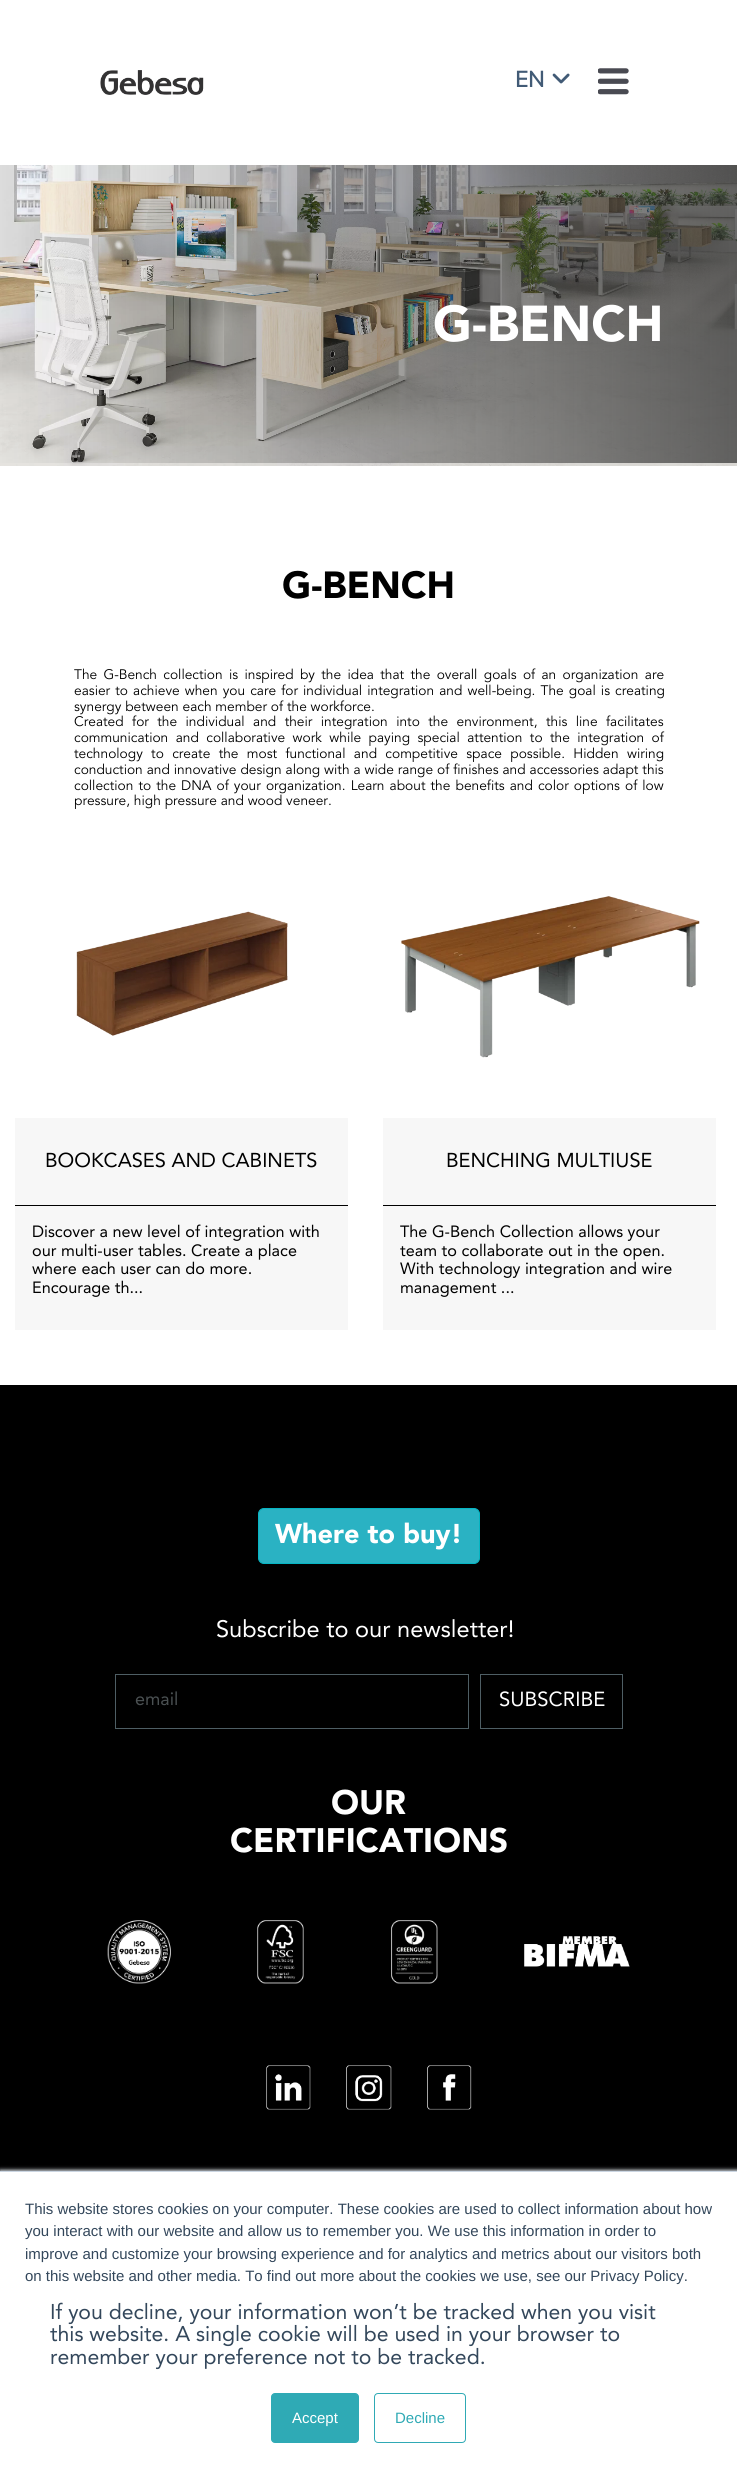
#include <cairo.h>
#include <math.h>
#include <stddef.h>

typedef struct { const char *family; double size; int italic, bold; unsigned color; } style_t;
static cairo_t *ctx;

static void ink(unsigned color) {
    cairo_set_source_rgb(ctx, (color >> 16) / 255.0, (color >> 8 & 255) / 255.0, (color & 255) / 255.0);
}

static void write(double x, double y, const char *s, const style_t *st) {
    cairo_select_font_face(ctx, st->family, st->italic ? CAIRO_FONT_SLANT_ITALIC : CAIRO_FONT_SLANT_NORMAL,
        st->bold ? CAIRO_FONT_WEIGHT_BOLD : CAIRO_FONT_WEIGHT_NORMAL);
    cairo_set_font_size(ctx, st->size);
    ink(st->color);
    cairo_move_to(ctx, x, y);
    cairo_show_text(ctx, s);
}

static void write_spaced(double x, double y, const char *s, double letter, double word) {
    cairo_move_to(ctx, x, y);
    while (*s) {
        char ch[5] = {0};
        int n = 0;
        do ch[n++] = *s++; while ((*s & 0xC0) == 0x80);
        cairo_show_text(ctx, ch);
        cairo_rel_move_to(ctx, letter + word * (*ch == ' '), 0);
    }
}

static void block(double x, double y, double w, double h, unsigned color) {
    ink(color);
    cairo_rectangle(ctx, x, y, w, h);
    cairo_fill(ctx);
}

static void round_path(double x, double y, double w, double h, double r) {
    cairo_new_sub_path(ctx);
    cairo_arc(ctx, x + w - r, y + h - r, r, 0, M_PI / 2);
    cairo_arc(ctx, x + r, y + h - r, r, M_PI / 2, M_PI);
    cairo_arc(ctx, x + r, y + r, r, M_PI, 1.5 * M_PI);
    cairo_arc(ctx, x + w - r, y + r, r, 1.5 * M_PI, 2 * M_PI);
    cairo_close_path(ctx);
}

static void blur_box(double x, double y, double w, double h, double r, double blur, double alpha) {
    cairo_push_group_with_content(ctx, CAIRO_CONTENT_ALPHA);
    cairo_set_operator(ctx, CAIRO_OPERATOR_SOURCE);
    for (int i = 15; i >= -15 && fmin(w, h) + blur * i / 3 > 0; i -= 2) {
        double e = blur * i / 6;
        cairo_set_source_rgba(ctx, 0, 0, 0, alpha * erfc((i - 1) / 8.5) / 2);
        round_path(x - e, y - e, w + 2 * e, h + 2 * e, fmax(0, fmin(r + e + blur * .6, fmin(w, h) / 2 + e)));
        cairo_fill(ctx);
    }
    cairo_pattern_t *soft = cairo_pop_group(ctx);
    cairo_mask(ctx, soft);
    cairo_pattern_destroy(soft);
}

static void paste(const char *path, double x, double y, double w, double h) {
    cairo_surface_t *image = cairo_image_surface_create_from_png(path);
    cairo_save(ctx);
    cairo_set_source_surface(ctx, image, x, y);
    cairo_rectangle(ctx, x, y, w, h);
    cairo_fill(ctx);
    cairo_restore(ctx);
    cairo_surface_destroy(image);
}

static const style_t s1 = {"Muli", 22, 0, 1, 0x425b76};
static const style_t s2 = {"Avenir Black", 50, 0, 0, 0xffffff};
static const style_t s3 = {"Avenir Black", 37.5, 0, 0, 0x000000};
static const style_t s4 = {"Avenir", 13.75, 0, 0, 0x000000};
static const style_t s5 = {"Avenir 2", 20, 0, 0, 0x000000};
static const style_t s6 = {"Avenir 2", 16.25, 0, 0, 0x000000};
static const style_t s7 = {"Avenir Black", 27, 0, 0, 0xffffff};
static const style_t s8 = {"Avenir 2", 23.6, 0, 0, 0xffffff};
static const style_t s9 = {"Avenir 2", 18, 0, 0, 0x4a5052};
static const style_t s10 = {"Avenir 2", 20.25, 0, 0, 0xffffff};
static const style_t s11 = {"Avenir Black", 33.75, 0, 0, 0xffffff};
static const style_t s12 = {"Liberation Sans", 15, 0, 0, 0x33475b};
static const style_t s13 = {"Avenir 2", 21.25, 0, 0, 0x33475b};
static const style_t s14 = {"Liberation Sans", 15, 0, 0, 0xffffff};
static const style_t s15 = {"Liberation Sans", 15, 0, 0, 0x2faab5};

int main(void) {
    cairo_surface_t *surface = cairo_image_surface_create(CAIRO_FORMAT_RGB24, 737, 2474);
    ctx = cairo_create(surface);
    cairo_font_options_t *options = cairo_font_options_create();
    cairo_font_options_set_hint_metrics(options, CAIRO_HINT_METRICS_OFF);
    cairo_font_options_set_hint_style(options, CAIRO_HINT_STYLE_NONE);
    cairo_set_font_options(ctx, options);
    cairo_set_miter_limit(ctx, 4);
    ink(0xffffff);
    cairo_paint(ctx);
    paste("pic1.png", 100, 70, 104, 25);
    write(515, 87, "EN", &s1);
    paste("pic2.png", 552, 73, 18, 11);
    paste("pic3.png", 598, 68, 31, 27);
    paste("pic4.png", 0, 165, 737, 301);
    write(433, 341, "G-BENCH", &s2);
    write(282, 598, "G-BENCH", &s3);
    cairo_select_font_face(ctx, "Avenir", CAIRO_FONT_SLANT_NORMAL, CAIRO_FONT_WEIGHT_NORMAL);
    cairo_set_font_size(ctx, 13.75);
    write_spaced(74, 679, "The G-Bench collection is inspired by the idea that the overall goals of an organization are", 0, 2.5);
    write_spaced(74, 695, "easier to achieve when you care for individual integration and well-being. The goal is creating", 0, 1.25);
    write(74, 711, "synergy between each member of the workforce.", &s4);
    write_spaced(74, 726, "Created for the individual and their integration into the environment, this line facilitates", 0, 4.6);
    write_spaced(74, 742, "communication and collaborative work while paying special attention to the integration of", 0, 3.6);
    write_spaced(74, 758, "technology to create the most functional and competitive space possible. Hidden wiring", 0, 4.5);
    write_spaced(74, 774, "conduction and innovative design along with a wide range of finishes and accessories adapt this", 0, 0.1);
    write_spaced(74, 790, "collection to the DNA of your organization. Learn about the benefits and color options of low", 0, 1.25);
    write(74, 805, "pressure, high pressure and wood veneer.", &s4);
    paste("pic5.png", 76, 911, 212, 125);
    block(15, 1118, 333, 87, 0xf7f7f7);
    write(45, 1167, "BOOKCASES AND CABINETS", &s5);
    block(15, 1206, 333, 124, 0xf7f7f7);
    block(15, 1205, 333, 1, 0x000000);
    write(32, 1237, "Discover a new level of integration with", &s6);
    write(32, 1256, "our multi-user tables. Create a place", &s6);
    write(32, 1274, "where each user can do more.", &s6);
    write(32, 1293, "Encourage th...", &s6);
    paste("pic6.png", 401, 896, 299, 162);
    block(383, 1118, 333, 87, 0xf7f7f7);
    write(446, 1167, "BENCHING MULTIUSE", &s5);
    block(383, 1206, 333, 124, 0xf7f7f7);
    block(383, 1205, 333, 1, 0x000000);
    write(400, 1237, "The G-Bench Collection allows your", &s6);
    write(400, 1256, "team to collaborate out in the open.", &s6);
    write(400, 1274, "With technology integration and wire", &s6);
    write(400, 1293, "management ...", &s6);
    block(0, 1385, 737, 786, 0x000000);
    ink(0x2ab2c3);
    round_path(258.5, 1508.5, 221, 55, 5.5);
    cairo_fill_preserve(ctx);
    ink(0x05b5c3);
    cairo_set_line_width(ctx, 1);
    cairo_stroke(ctx);
    write(275, 1543, "Where to buy!", &s7);
    write(216, 1637, "Subscribe to our newsletter!", &s8);
    cairo_rectangle(ctx, 115.5, 1674.5, 353, 54);
    ink(0x4e5e64);
    cairo_stroke(ctx);
    write(135, 1705, "email", &s9);
    cairo_rectangle(ctx, 480.5, 1674.5, 142, 54);
    ink(0x4e5e64);
    cairo_stroke(ctx);
    write(499, 1706, "SUBSCRIBE", &s10);
    write(331, 1814, "OUR", &s11);
    write(230, 1852, "CERTIFICATIONS", &s11);
    paste("pic7.png", 107, 1920, 64, 64);
    paste("pic8.png", 257, 1920, 47, 64);
    paste("pic9.png", 391, 1920, 47, 64);
    paste("pic10.png", 524, 1936, 106, 31);
    paste("pic11.png", 266, 2065, 45, 45);
    paste("pic12.png", 346, 2065, 46, 45);
    paste("pic13.png", 427, 2065, 45, 45);
    ink(0xeaf0f6);
    blur_box(0, 2170, 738, 304, 0, 2, 1);
    block(0, 2172, 737, 302, 0xffffff);
    block(0, 2171, 737, 1, 0xcbd6e2);
    write(25, 2214, "This website stores cookies on your computer. These cookies are used to collect information about how", &s12);
    write(25, 2236, "you interact with our website and allow us to remember you. We use this information in order to", &s12);
    write(25, 2259, "improve and customize your browsing experience and for analytics and metrics about our visitors both", &s12);
    write(25, 2281, "on this website and other media. To find out more about the cookies we use, see our Privacy Policy.", &s12);
    write(50, 2319, "If you decline, your information won’t be tracked when you visit", &s13);
    write(50, 2341, "this website. A single cookie will be used in your browser to", &s13);
    write(50, 2364, "remember your preference not to be tracked.", &s13);
    ink(0x2faab5);
    round_path(271.5, 2393.5, 87, 49, 3.5);
    cairo_fill_preserve(ctx);
    cairo_stroke(ctx);
    write(292, 2423, "Accept", &s14);
    round_path(374.5, 2393.5, 91, 49, 3.5);
    ink(0x2faab5);
    cairo_stroke(ctx);
    write(395, 2423, "Decline", &s15);
    cairo_surface_write_to_png(surface, "screenshot.png");
    cairo_font_options_destroy(options);
    cairo_destroy(ctx);
    cairo_surface_destroy(surface);
    return 0;
}
